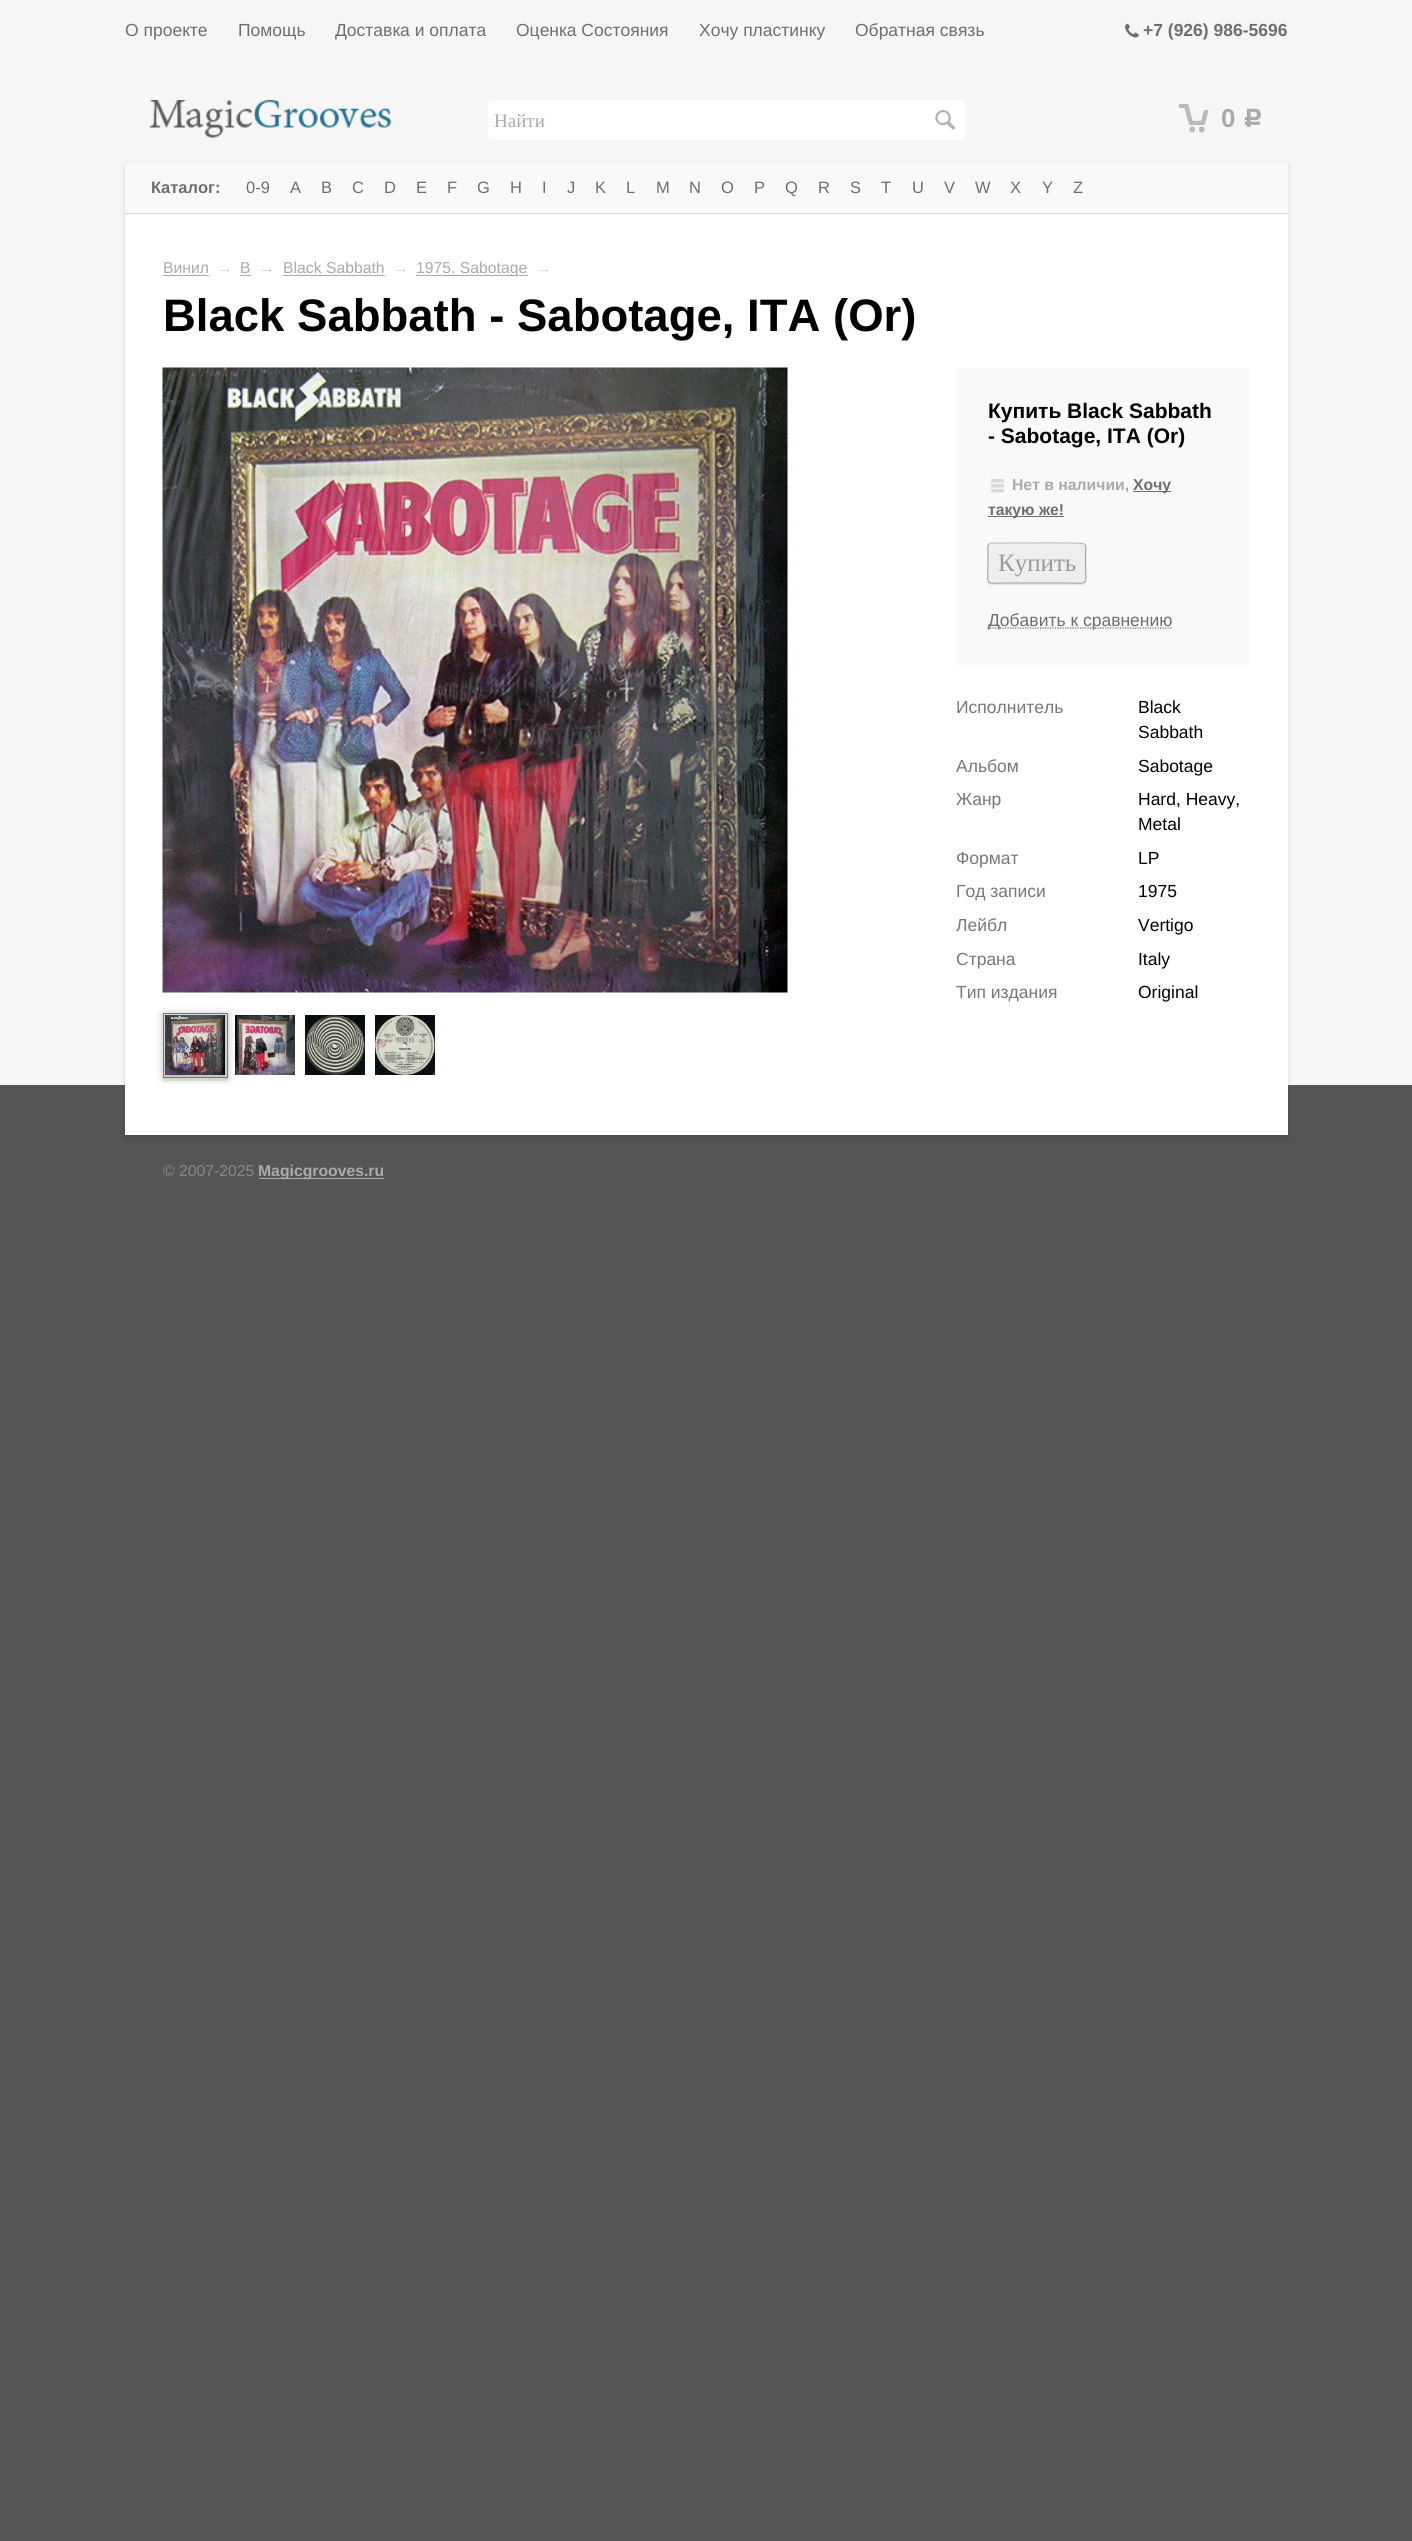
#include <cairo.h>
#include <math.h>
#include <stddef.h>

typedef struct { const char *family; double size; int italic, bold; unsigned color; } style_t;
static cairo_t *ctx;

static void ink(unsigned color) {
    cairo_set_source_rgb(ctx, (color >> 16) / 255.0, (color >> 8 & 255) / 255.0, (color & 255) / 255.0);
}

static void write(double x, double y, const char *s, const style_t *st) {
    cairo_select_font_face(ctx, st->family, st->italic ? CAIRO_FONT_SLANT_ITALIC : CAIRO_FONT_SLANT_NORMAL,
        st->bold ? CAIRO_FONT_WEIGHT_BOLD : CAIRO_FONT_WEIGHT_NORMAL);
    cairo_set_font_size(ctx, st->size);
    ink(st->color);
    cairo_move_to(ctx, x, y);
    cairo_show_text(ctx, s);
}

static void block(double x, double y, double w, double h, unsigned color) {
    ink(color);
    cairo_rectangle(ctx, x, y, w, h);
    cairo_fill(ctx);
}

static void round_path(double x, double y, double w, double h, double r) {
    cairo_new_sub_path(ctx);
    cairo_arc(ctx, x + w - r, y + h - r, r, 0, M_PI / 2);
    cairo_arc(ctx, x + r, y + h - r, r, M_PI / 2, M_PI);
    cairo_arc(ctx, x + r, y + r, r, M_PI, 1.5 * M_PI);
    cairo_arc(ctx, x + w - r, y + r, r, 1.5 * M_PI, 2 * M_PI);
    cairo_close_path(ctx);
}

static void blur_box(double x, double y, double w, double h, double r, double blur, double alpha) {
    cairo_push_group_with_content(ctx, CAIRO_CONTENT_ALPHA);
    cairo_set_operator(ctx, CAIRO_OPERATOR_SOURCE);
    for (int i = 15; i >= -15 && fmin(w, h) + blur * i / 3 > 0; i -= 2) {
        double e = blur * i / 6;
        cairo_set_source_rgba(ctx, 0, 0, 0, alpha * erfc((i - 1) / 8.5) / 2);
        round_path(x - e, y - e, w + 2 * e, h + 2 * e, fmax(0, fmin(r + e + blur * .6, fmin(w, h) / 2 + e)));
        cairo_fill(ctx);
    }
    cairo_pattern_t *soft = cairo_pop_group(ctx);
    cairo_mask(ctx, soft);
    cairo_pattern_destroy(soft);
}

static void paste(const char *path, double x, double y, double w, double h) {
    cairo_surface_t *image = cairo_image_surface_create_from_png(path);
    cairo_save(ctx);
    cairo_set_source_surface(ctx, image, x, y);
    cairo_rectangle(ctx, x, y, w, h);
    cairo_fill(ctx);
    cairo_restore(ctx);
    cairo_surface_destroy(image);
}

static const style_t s1 = {"Liberation Sans", 17.5, 0, 0, 0x6e6e6e};
static const style_t s2 = {"Liberation Sans", 17.5, 0, 1, 0x6e6e6e};
static const style_t s3 = {"Liberation Serif", 19, 0, 0, 0xaaaaaa};
static const style_t s4 = {"Liberation Sans", 26, 0, 1, 0xaaaaaa};
static const style_t s5 = {"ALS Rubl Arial", 26, 0, 1, 0xaaaaaa};
static const style_t s6 = {"Liberation Sans", 16.5, 0, 1, 0x6e6e6e};
static const style_t s7 = {"Liberation Sans", 16.5, 0, 0, 0x6e6e6e};
static const style_t s8 = {"Liberation Sans", 15.75, 0, 0, 0xaaaaaa};
static const style_t s9 = {"Liberation Sans", 15.75, 0, 0, 0xcccccc};
static const style_t s10 = {"Liberation Sans", 45.5, 0, 1, 0x000000};
static const style_t s11 = {"Liberation Sans", 21, 0, 1, 0x000000};
static const style_t s12 = {"Liberation Sans", 15.75, 0, 1, 0xaaaaaa};
static const style_t s13 = {"Liberation Sans", 15.75, 0, 1, 0x6e6e6e};
static const style_t s14 = {"Liberation Serif", 25, 0, 0, 0x999999};
static const style_t s15 = {"Liberation Sans", 17.5, 0, 0, 0x777777};
static const style_t s16 = {"Liberation Sans", 17.5, 0, 0, 0x000000};
static const style_t s17 = {"Liberation Sans", 15.75, 0, 0, 0x888888};

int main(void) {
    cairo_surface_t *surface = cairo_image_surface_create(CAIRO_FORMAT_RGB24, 1412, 2541);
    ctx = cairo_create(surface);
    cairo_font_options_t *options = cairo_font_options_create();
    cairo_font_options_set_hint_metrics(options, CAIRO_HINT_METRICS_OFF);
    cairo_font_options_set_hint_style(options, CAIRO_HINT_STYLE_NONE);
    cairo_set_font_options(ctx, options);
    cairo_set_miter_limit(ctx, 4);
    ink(0x555555);
    cairo_paint(ctx);
    block(0, 0, 1412, 1085, 0xf6f6f6);
    write(125, 36, "О проекте", &s1);
    write(238, 36, "Помощь", &s1);
    write(335, 36, "Доставка и оплата", &s1);
    write(516, 36, "Оценка Состояния", &s1);
    write(699, 36, "Хочу пластинку", &s1);
    write(855, 36, "Обратная связь", &s1);
    paste("pic1.png", 1125, 23, 14, 15);
    write(1143, 36, "+7 (926) 986-5696", &s2);
    paste("pic2.png", 150, 100, 242, 38);
    ink(0xffffff);
    round_path(488, 100, 477, 40, 4);
    cairo_fill(ctx);
    write(494, 127, "Найти", &s3);
    paste("pic3.png", 935, 110, 20, 20);
    paste("pic4.png", 1178, 104, 31, 29);
    write(1221, 127, "0", &s4);
    write(1243, 127, "Р", &s5);
    ink(0x000000);
    blur_box(125, 165, 1163, 973, 0, 3, 0.13);
    block(125, 214, 1163, 921, 0xffffff);
    block(125, 163, 1163, 50, 0xf9f9f9);
    block(125, 213, 1163, 1, 0xd4d4d4);
    write(151, 193, "Каталог:", &s6);
    write(246, 193, "0-9", &s7);
    write(290, 193, "A", &s7);
    write(321, 193, "B", &s7);
    write(352, 193, "C", &s7);
    write(384, 193, "D", &s7);
    write(416, 193, "E", &s7);
    write(447, 193, "F", &s7);
    write(477, 193, "G", &s7);
    write(510, 193, "H", &s7);
    write(542, 193, "I", &s7);
    write(567, 193, "J", &s7);
    write(595, 193, "K", &s7);
    write(626, 193, "L", &s7);
    write(656, 193, "M", &s7);
    write(689, 193, "N", &s7);
    write(721, 193, "O", &s7);
    write(754, 193, "P", &s7);
    write(785, 193, "Q", &s7);
    write(818, 193, "R", &s7);
    write(850, 193, "S", &s7);
    write(881, 193, "T", &s7);
    write(912, 193, "U", &s7);
    write(944, 193, "V", &s7);
    write(975, 193, "W", &s7);
    write(1010, 193, "X", &s7);
    write(1042, 193, "Y", &s7);
    write(1073, 193, "Z", &s7);
    write(163, 273, "Винил", &s8);
    block(163, 275, 46, 1, 0xaaaaaa);
    write(217, 273, "→", &s9);
    write(240, 273, "B", &s8);
    block(240, 275, 11, 1, 0xaaaaaa);
    write(259, 273, "→", &s9);
    write(283, 273, "Black Sabbath", &s8);
    block(283, 275, 102, 1, 0xaaaaaa);
    write(393, 273, "→", &s9);
    block(416, 275, 112, 1, 0xaaaaaa);
    write(416, 273, "1975. Sabotage", &s8);
    write(536, 273, "→", &s9);
    write(163, 331, "Black Sabbath - Sabotage, ITA (Or)", &s10);
    paste("pic5.png", 162, 367, 626, 626);
    block(163, 1061, 65, 20, 0xeeeedd);
    ink(0xbbbbbb);
    blur_box(163, 1014, 65, 65, 0, 4, 1);
    cairo_rectangle(ctx, 163.5, 1013.5, 64, 64);
    ink(0x777777);
    cairo_set_line_width(ctx, 1);
    cairo_stroke(ctx);
    paste("pic6.png", 165, 1015, 60, 60);
    cairo_rectangle(ctx, 233.5, 1013.5, 64, 64);
    ink(0xffffff);
    cairo_stroke(ctx);
    paste("pic7.png", 235, 1015, 60, 60);
    paste("pic8.png", 305, 1015, 60, 60);
    paste("pic9.png", 375, 1015, 60, 60);
    block(956, 368, 294, 297, 0xf9f9f9);
    write(988, 418, "Купить Black Sabbath", &s11);
    write(988, 443, "- Sabotage, ITA (Or)", &s11);
    paste("pic10.png", 991, 479, 13, 14);
    write(1012, 490, "Нет в наличии,", &s12);
    block(1133, 491, 38, 1, 0x6e6e6e);
    write(1133, 490, "Хочу", &s13);
    block(988, 516, 76, 1, 0x6e6e6e);
    write(988, 515, "такую же!", &s13);
    ink(0x000000);
    blur_box(988, 544, 98, 41, 4, 0.5, 0.1);
    ink(0xeeeeee);
    round_path(988, 543, 98, 41, 4);
    cairo_fill(ctx);
    cairo_new_path(ctx);
    cairo_move_to(ctx, 989, 544);
    cairo_line_to(ctx, 991, 543);
    cairo_line_to(ctx, 1006.5, 543);
    cairo_curve_to(ctx, 1015, 543, 1082.5, 542, 1084.5, 544);
    cairo_set_source_rgba(ctx, 0, 0, 0, 0.2);
    cairo_set_line_width(ctx, 1.2);
    cairo_stroke(ctx);
    cairo_new_path(ctx);
    cairo_move_to(ctx, 1084.5, 544);
    cairo_curve_to(ctx, 1086.5, 546, 1085.5, 550.5, 1085.5, 552);
    cairo_line_to(ctx, 1085.5, 563);
    cairo_curve_to(ctx, 1085.5, 586.5, 1090, 583, 1067.5, 583);
    cairo_line_to(ctx, 1006.5, 583);
    cairo_curve_to(ctx, 983.5, 583, 988, 586.5, 988, 563);
    cairo_line_to(ctx, 988, 552);
    cairo_curve_to(ctx, 988, 550.5, 987, 546, 989, 544);
    cairo_set_source_rgba(ctx, 0, 0, 0, 0.3);
    cairo_stroke(ctx);
    write(998, 571, "Купить", &s14);
    cairo_new_path(ctx);
    cairo_move_to(ctx, 987.5, 628);
    cairo_line_to(ctx, 1172.5, 628);
    ink(0x6e6e6e);
    cairo_set_dash(ctx, (double[]){1.25, 1.25}, 2, 0);
    cairo_stroke(ctx);
    write(988, 626, "Добавить к сравнению", &s1);
    write(956, 713, "Исполнитель", &s15);
    write(1138, 713, "Black", &s16);
    write(1138, 738, "Sabbath", &s16);
    write(956, 772, "Альбом", &s15);
    write(1138, 772, "Sabotage", &s16);
    write(956, 805, "Жанр", &s15);
    write(1138, 805, "Hard, Heavy,", &s16);
    write(1138, 830, "Metal", &s16);
    write(956, 864, "Формат", &s15);
    write(1138, 864, "LP", &s16);
    write(956, 897, "Год записи", &s15);
    write(1138, 897, "1975", &s16);
    write(956, 931, "Лейбл", &s15);
    write(1138, 931, "Vertigo", &s16);
    write(956, 965, "Страна", &s15);
    write(1138, 965, "Italy", &s16);
    write(956, 998, "Тип издания", &s15);
    write(1138, 998, "Original", &s16);
    cairo_save(ctx);
    cairo_rectangle(ctx, 163, 1160, 221, 25);
    cairo_clip(ctx);
    write(163, 1176, "© 2007-2025", &s17);
    cairo_restore(ctx);
    block(259, 1178, 125, 1, 0xaaaaaa);
    write(258, 1176, "Magicgrooves.ru", &s12);
    cairo_surface_write_to_png(surface, "screenshot.png");
    cairo_font_options_destroy(options);
    cairo_destroy(ctx);
    cairo_surface_destroy(surface);
    return 0;
}
